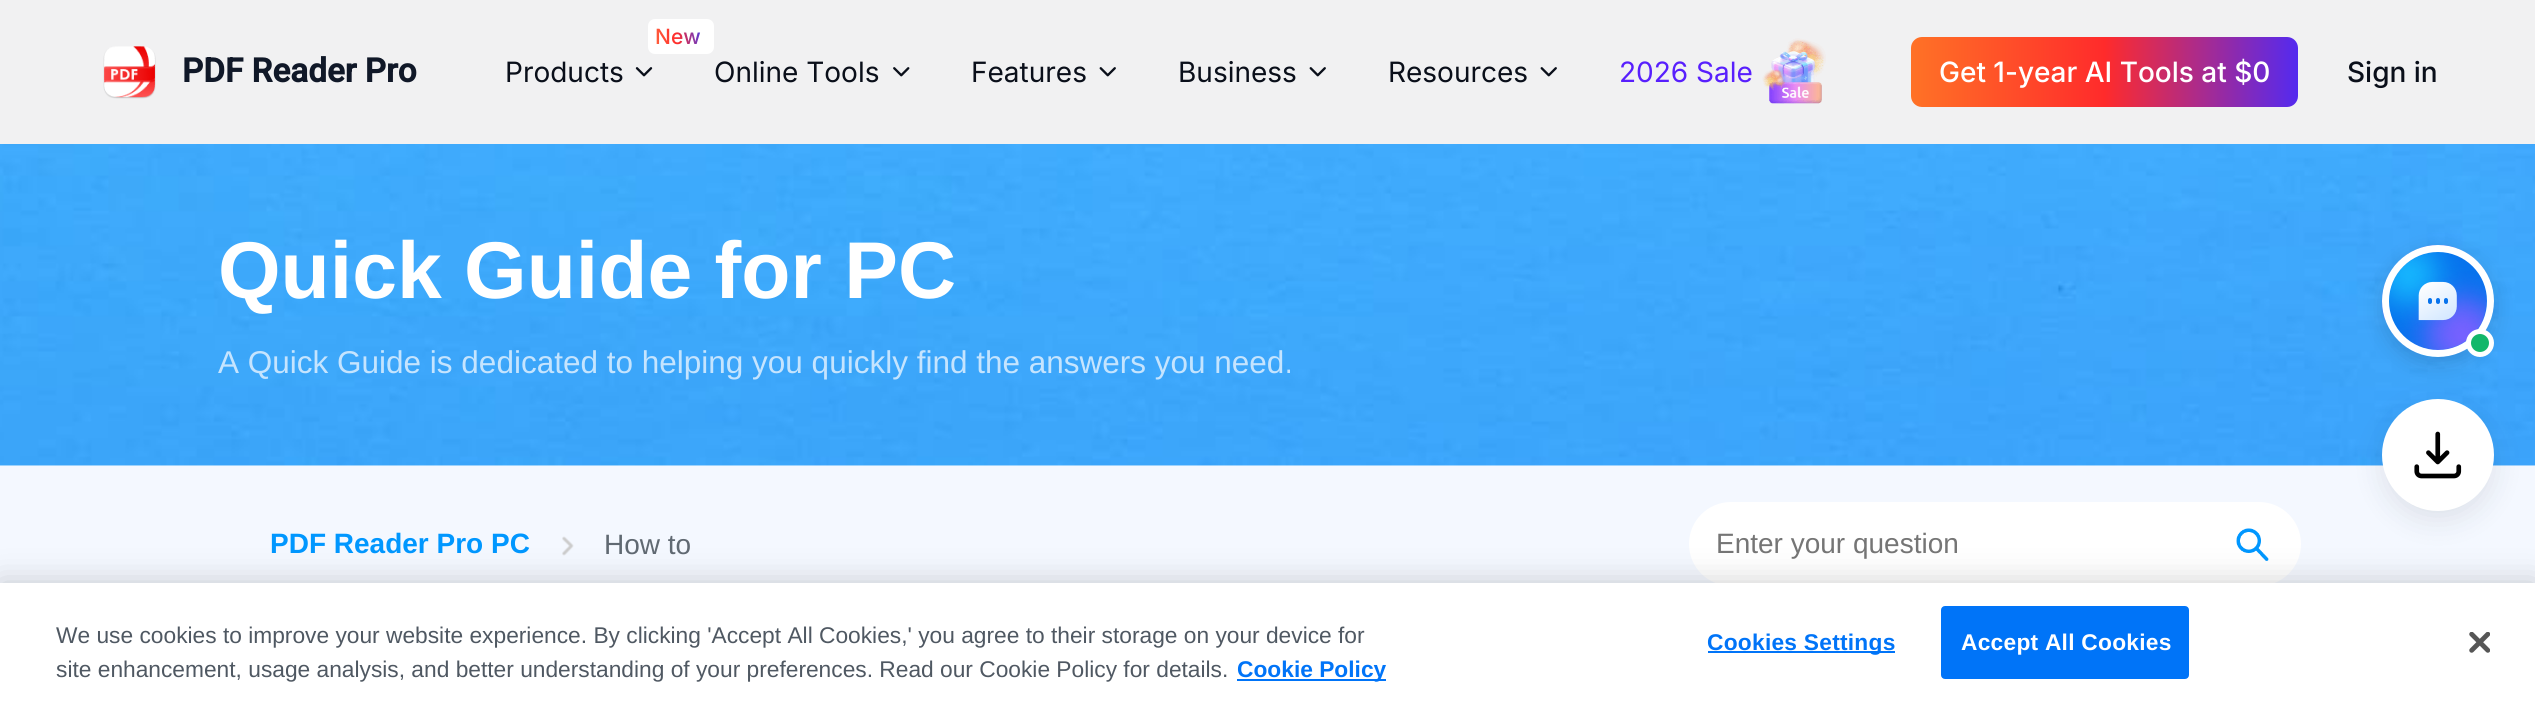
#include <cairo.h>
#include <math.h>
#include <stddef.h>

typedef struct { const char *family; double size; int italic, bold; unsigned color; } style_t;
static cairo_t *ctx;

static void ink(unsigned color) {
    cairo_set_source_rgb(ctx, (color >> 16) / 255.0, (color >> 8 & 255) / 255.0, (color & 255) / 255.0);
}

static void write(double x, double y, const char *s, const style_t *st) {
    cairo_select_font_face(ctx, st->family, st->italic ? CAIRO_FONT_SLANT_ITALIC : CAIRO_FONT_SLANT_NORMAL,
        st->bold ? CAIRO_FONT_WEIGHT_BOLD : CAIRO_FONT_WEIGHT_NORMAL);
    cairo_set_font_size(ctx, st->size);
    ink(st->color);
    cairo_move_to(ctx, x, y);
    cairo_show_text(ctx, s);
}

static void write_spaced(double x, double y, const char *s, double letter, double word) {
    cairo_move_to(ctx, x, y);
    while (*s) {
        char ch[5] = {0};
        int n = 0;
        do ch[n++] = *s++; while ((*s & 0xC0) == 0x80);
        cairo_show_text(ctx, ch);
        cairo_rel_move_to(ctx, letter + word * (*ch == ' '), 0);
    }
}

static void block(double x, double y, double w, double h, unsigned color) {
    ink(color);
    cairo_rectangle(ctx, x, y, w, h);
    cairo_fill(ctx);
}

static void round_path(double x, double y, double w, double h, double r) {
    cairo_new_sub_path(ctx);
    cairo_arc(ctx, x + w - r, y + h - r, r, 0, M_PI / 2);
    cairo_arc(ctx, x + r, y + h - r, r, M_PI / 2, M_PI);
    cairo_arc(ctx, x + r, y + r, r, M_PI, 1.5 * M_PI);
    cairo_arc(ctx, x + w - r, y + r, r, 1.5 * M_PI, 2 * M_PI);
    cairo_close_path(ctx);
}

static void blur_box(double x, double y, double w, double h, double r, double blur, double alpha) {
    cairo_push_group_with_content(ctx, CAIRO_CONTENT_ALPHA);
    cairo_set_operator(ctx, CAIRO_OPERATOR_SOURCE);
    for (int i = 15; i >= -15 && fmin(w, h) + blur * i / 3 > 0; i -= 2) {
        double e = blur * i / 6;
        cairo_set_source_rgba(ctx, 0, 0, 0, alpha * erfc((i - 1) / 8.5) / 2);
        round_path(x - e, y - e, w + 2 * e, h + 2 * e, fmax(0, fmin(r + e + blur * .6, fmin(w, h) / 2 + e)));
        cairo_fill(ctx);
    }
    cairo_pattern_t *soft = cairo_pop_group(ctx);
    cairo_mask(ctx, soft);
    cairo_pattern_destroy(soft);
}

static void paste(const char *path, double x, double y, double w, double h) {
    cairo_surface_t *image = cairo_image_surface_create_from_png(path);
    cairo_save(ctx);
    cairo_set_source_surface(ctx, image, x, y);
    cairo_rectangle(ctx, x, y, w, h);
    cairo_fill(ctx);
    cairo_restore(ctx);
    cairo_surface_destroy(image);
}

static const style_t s1 = {"Roboto", 33.25, 0, 1, 0x101828};
static const style_t s2 = {"Inter", 28, 0, 0, 0x0a0f1a};
static const style_t s3 = {"Inter", 28, 0, 0, 0x581ffd};
static const style_t s4 = {"Inter Medium", 28, 0, 0, 0xffffff};
static const style_t s5 = {"Inter Medium", 28, 0, 0, 0x0a0f1a};
static const style_t s6 = {"Liberation Sans", 80.5, 0, 1, 0xffffff};
static const style_t s7 = {"Liberation Sans", 31.5, 0, 0, 0xc5e4fe};
static const style_t s8 = {"Liberation Sans", 28, 0, 1, 0x0097ff};
static const style_t s9 = {"Liberation Sans", 28, 0, 0, 0x606972};
static const style_t s10 = {"Liberation Sans", 28, 0, 0, 0x757575};
static const style_t s11 = {"Liberation Sans", 22.75, 0, 0, 0x4f5862};
static const style_t s12 = {"Liberation Sans", 22.75, 0, 1, 0x0074f8};

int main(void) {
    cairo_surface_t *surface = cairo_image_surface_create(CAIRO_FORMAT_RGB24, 2535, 707);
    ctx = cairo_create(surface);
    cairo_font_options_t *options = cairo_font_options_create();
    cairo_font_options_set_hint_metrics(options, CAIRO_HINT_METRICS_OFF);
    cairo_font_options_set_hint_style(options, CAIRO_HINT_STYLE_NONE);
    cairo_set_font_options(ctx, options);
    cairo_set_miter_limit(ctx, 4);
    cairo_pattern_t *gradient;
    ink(0xffffff);
    cairo_paint(ctx);
    block(0, 0, 2535, 144, 0xf1f1f2);
    paste("pic1.png", 103, 46, 53, 53);
    write(182, 82, "PDF Reader Pro", &s1);
    ink(0xffffff);
    round_path(648, 19, 66, 35, 7);
    cairo_fill(ctx);
    cairo_select_font_face(ctx, "Inter Medium", CAIRO_FONT_SLANT_NORMAL, CAIRO_FONT_WEIGHT_NORMAL);
    cairo_set_font_size(ctx, 21);
    gradient = cairo_pattern_create_linear(703, 30, 649, 42);
    cairo_pattern_add_color_stop_rgba(gradient, 0, 0.251, 0.235, 0.937, 1);
    cairo_pattern_add_color_stop_rgba(gradient, 0.49, 1, 0.169, 0.169, 1);
    cairo_pattern_add_color_stop_rgba(gradient, 1, 1, 0.431, 0.251, 1);
    cairo_set_source(ctx, gradient);
    cairo_pattern_destroy(gradient);
    cairo_move_to(ctx, 655, 44);
    cairo_show_text(ctx, "New");
    write(505, 82, "Products", &s2);
    paste("pic2.png", 635, 67, 18, 10);
    write(714, 82, "Online Tools", &s2);
    paste("pic3.png", 893, 67, 17, 10);
    write(971, 82, "Features", &s2);
    paste("pic4.png", 1099, 67, 17, 10);
    write(1178, 82, "Business", &s2);
    paste("pic4.png", 1309, 67, 17, 10);
    write(1388, 82, "Resources", &s2);
    paste("pic4.png", 1540, 67, 17, 10);
    write(1619, 82, "2026 Sale", &s3);
    paste("pic5.png", 1762, 38, 64, 66);
    gradient = cairo_pattern_create_linear(1911, 72, 2298, 71);
    cairo_pattern_add_color_stop_rgba(gradient, 0, 1, 0.447, 0.149, 1);
    cairo_pattern_add_color_stop_rgba(gradient, 0.5, 1, 0.169, 0.169, 1);
    cairo_pattern_add_color_stop_rgba(gradient, 1, 0.329, 0.165, 0.941, 1);
    cairo_set_source(ctx, gradient);
    cairo_pattern_destroy(gradient);
    round_path(1911, 37, 387, 70, 11);
    cairo_fill(ctx);
    write(1939, 82, "Get 1-year AI Tools at $0", &s4);
    write(2347, 82, "Sign in", &s5);
    paste("pic6.png", 0, 144, 2535, 322);
    write(218, 298, "Quick Guide for PC", &s6);
    write(218, 373, "A Quick Guide is dedicated to helping you quickly find the answers you need.", &s7);
    ink(0x101828);
    blur_box(2382, 252, 112, 112, 56, 10.5, 0.15);
    ink(0x0773ed);
    cairo_arc(ctx, 2438, 301, 56, 0, 2 * M_PI);
    cairo_fill(ctx);
    paste("pic7.png", 2381, 245, 113, 112);
    cairo_arc(ctx, 2438, 301, 52.5, 0, 2 * M_PI);
    ink(0xffffff);
    cairo_set_line_width(ctx, 7);
    cairo_stroke(ctx);
    paste("pic8.png", 2418, 281, 39, 40);
    ink(0x12b76a);
    cairo_arc(ctx, 2480, 343, 11.5, 0, 2 * M_PI);
    cairo_fill_preserve(ctx);
    ink(0xffffff);
    cairo_set_line_width(ctx, 5);
    cairo_stroke(ctx);
    block(0, 466, 2535, 117, 0xf4f8ff);
    ink(0x101828);
    blur_box(2382, 408, 112, 112, 56, 14, 0.1);
    ink(0xffffff);
    cairo_arc(ctx, 2438, 455, 56, 0, 2 * M_PI);
    cairo_fill(ctx);
    paste("pic9.png", 2414, 431, 48, 48);
    write(270, 553, "PDF Reader Pro PC", &s8);
    paste("pic10.png", 562, 536, 12, 20);
    write(604, 554, "How to", &s9);
    ink(0xffffff);
    round_path(1689, 502, 612, 84, 42);
    cairo_fill(ctx);
    write(1716, 553, "Enter your question", &s10);
    paste("pic11.png", 2236, 528, 33, 33);
    ink(0x000000);
    blur_box(0, 583, 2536, 124, 0, 16, 0.2);
    block(0, 583, 2535, 124, 0xffffff);
    write(56, 643, "We use cookies to improve your website experience. By clicking 'Accept All Cookies,' you agree to their storage on your device for", &s11);
    write(56, 677, "site enhancement, usage analysis, and better understanding of your preferences. Read our Cookie Policy for details.", &s11);
    block(1237, 679, 149, 2, 0x0074f8);
    write(1237, 677, "Cookie Policy", &s12);
    block(1708, 651, 187, 2, 0x0074f8);
    write_spaced(1707, 650, "Cookies Settings", 0.25, 0);
    round_path(1942, 607, 246, 71, 3);
    cairo_fill_preserve(ctx);
    cairo_set_line_width(ctx, 2);
    cairo_stroke(ctx);
    ink(0xffffff);
    write_spaced(1961, 650, "Accept All Cookies", 0.25, 0);
    paste("pic12.png", 2469, 632, 21, 21);
    cairo_surface_write_to_png(surface, "screenshot.png");
    cairo_font_options_destroy(options);
    cairo_destroy(ctx);
    cairo_surface_destroy(surface);
    return 0;
}
